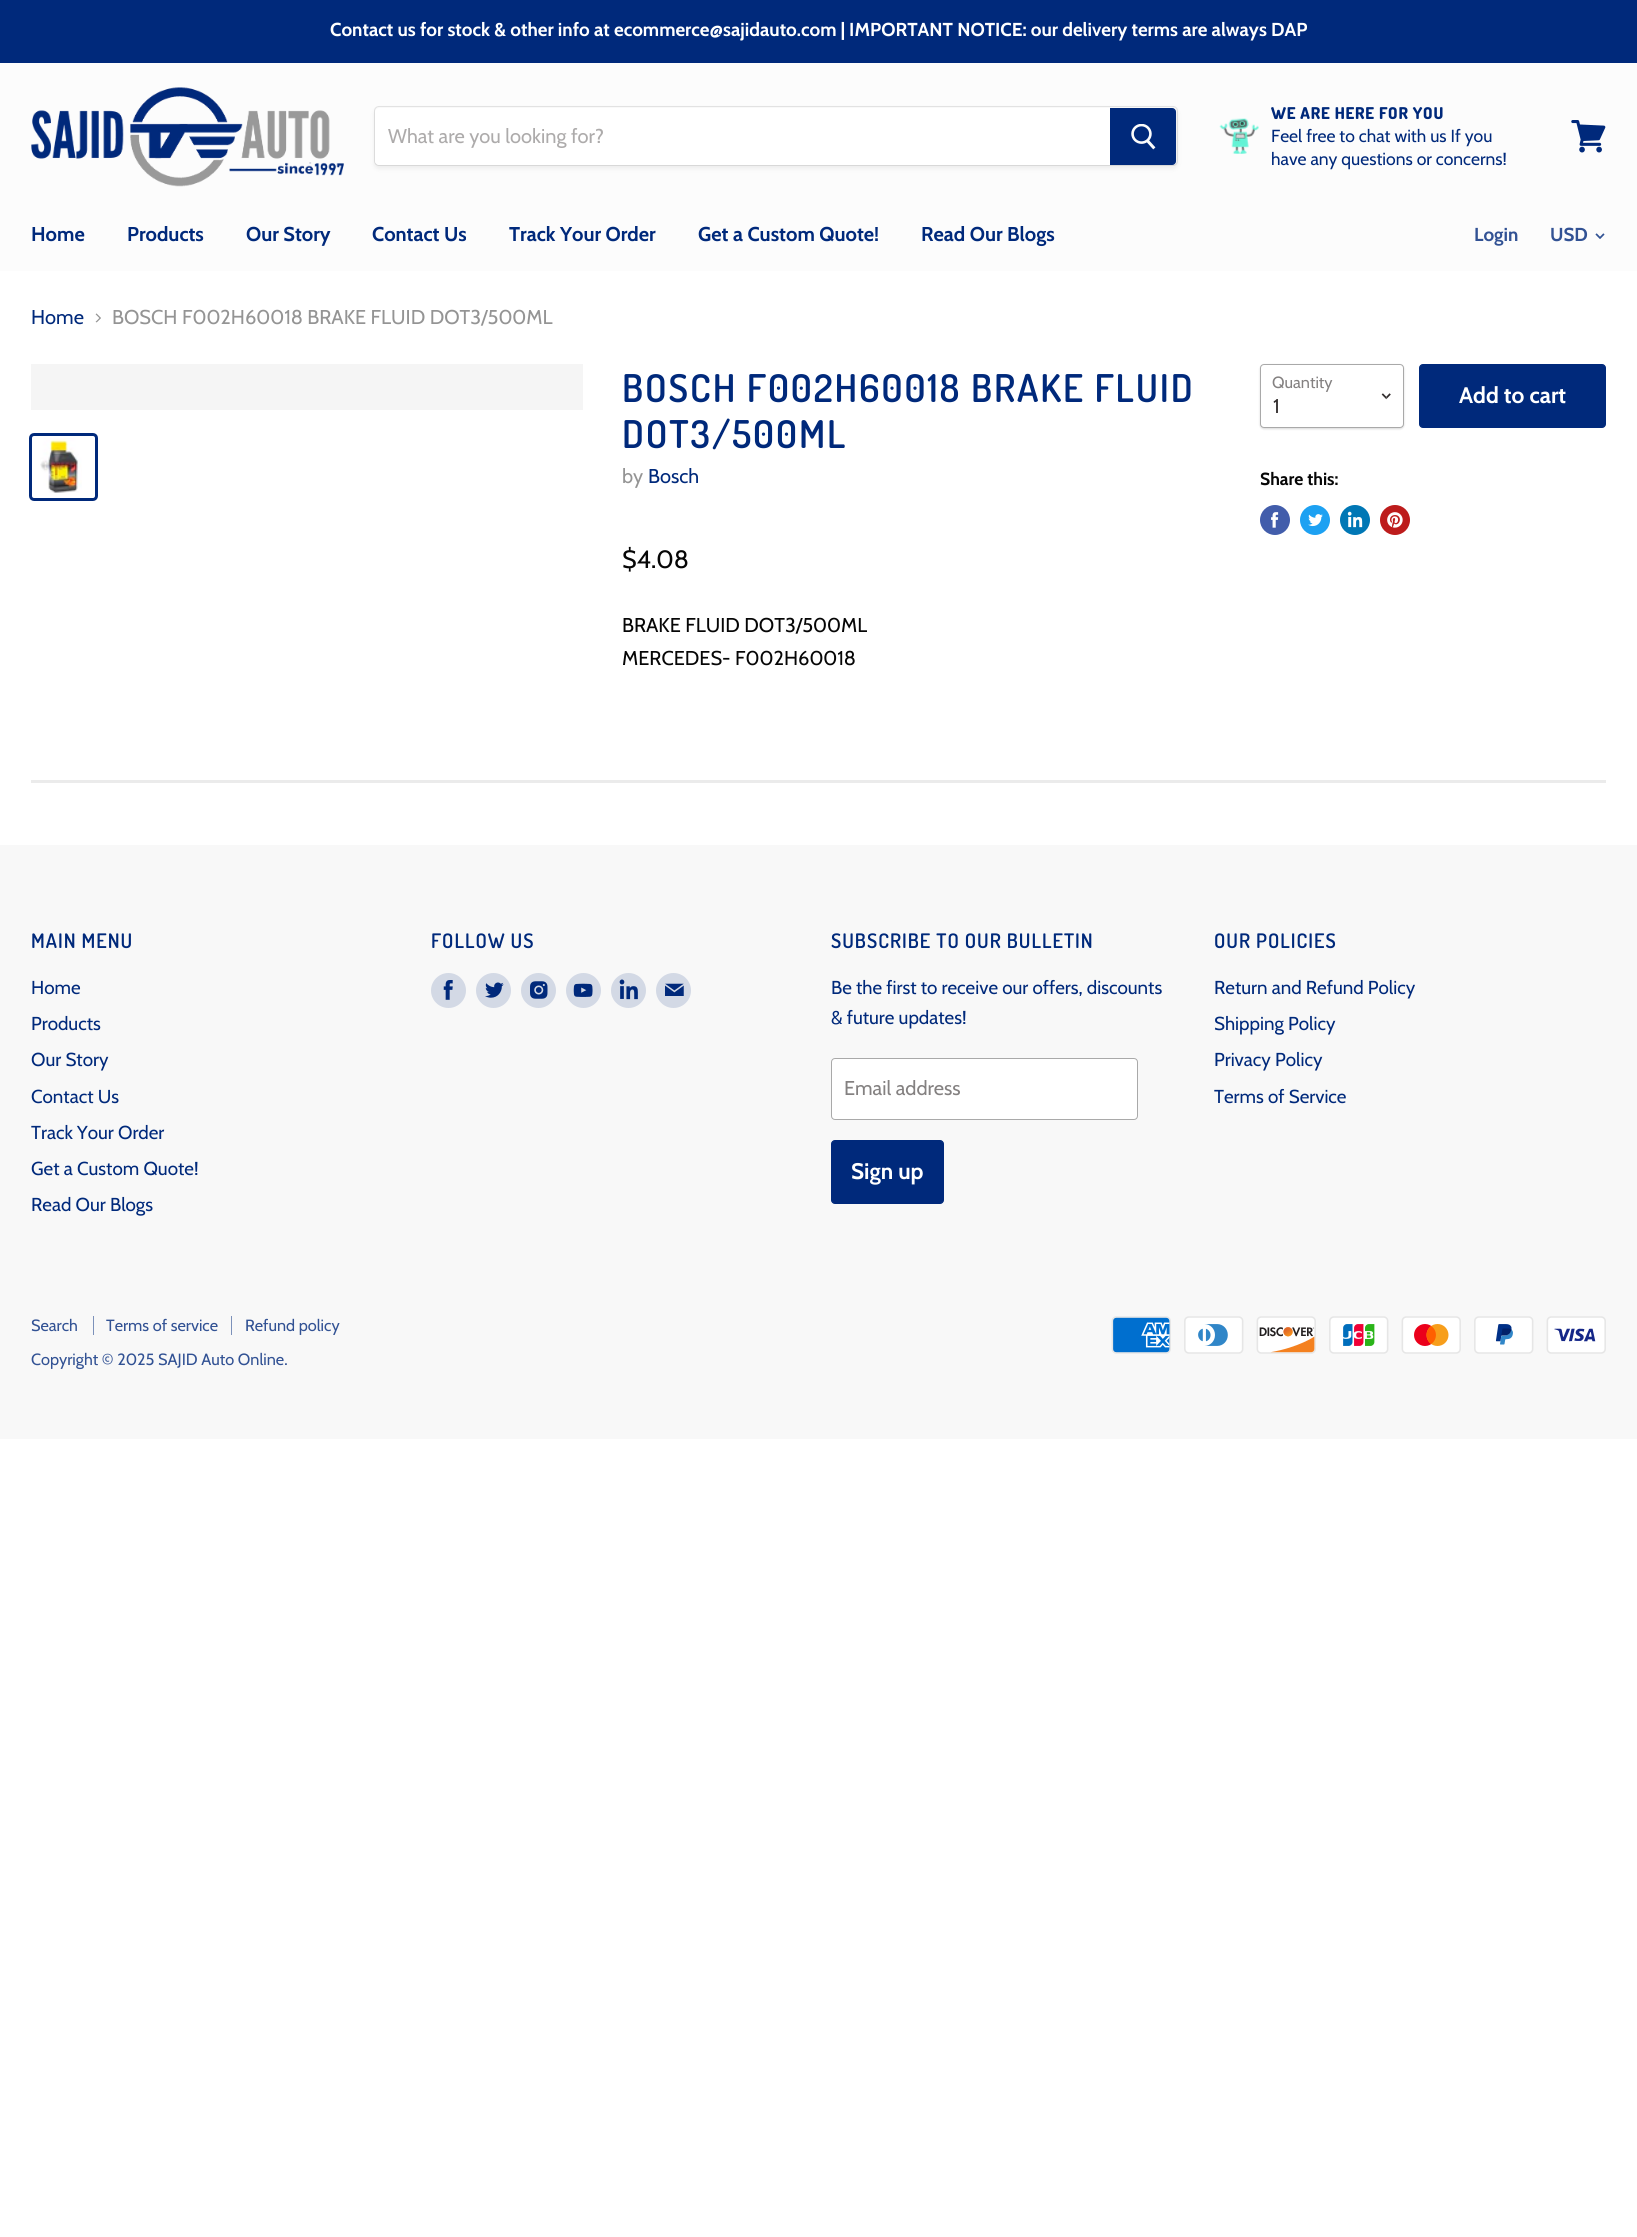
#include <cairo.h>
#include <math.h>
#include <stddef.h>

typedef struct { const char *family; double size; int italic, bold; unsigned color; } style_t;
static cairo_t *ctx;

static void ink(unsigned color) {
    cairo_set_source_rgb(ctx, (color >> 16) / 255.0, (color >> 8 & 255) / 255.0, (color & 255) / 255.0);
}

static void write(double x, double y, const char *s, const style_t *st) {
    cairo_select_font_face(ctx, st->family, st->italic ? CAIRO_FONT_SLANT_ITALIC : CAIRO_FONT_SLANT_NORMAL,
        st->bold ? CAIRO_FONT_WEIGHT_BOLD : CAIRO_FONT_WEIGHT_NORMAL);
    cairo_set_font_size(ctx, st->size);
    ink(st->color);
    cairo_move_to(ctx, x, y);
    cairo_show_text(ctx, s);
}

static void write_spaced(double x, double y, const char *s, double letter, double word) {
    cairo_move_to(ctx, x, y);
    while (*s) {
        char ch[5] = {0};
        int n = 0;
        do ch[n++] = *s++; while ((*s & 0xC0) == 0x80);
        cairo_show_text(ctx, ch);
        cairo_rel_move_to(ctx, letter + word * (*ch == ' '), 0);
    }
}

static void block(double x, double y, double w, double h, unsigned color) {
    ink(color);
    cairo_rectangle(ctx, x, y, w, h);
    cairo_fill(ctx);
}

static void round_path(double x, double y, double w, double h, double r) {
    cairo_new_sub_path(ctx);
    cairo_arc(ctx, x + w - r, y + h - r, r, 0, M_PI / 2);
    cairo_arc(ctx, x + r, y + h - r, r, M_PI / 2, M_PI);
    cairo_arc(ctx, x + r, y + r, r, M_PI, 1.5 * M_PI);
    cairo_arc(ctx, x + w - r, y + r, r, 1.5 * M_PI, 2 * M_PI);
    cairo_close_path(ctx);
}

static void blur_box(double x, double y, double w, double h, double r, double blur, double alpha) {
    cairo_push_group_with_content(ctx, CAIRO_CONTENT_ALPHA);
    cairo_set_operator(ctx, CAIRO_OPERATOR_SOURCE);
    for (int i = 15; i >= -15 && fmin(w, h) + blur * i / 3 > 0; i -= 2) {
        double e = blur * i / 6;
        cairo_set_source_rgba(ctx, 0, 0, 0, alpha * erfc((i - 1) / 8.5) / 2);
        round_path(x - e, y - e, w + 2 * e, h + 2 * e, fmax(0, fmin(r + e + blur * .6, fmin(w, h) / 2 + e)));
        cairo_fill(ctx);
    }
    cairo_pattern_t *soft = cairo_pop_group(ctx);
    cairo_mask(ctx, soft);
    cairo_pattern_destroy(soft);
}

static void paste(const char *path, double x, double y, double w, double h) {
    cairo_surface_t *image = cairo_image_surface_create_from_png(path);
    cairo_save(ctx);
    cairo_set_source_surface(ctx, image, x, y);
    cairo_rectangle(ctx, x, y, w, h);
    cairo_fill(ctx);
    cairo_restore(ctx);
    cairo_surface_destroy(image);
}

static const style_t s1 = {"Cabin", 18.75, 0, 1, 0xffffff};
static const style_t s2 = {"Cabin", 20, 0, 0, 0xadabab};
static const style_t s3 = {"Cabin", 17.5, 0, 0, 0x00297b};
static const style_t s4 = {"Cabin", 20, 0, 1, 0x00297b};
static const style_t s5 = {"Cabin", 18.75, 0, 1, 0x325294};
static const style_t s6 = {"Cabin", 20, 0, 0, 0x00297b};
static const style_t s7 = {"Cabin", 20, 0, 0, 0x949494};
static const style_t s8 = {"Cabin", 25, 0, 0, 0x060606};
static const style_t s9 = {"Cabin", 20, 0, 0, 0x060606};
static const style_t s10 = {"Cabin", 16.25, 0, 0, 0x848181};
static const style_t s11 = {"Cabin", 20, 0, 0, 0x322d2d};
static const style_t s12 = {"Cabin", 22.5, 0, 1, 0xffffff};
static const style_t s13 = {"Cabin", 17.5, 0, 1, 0x060606};
static const style_t s14 = {"Cabin", 18.75, 0, 0, 0x00297b};
static const style_t s15 = {"Cabin", 20, 0, 0, 0x848181};
static const style_t s16 = {"Cabin", 16.25, 0, 0, 0x325294};

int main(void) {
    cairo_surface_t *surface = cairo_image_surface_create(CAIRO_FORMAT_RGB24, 1637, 2237);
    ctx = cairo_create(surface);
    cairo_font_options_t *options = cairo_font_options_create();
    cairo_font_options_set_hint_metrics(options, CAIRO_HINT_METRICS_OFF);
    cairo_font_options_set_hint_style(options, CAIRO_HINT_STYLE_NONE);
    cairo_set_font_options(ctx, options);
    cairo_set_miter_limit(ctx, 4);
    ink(0xffffff);
    cairo_paint(ctx);
    block(0, 0, 1637, 63, 0x00297b);
    write(330, 36, "Contact us for stock & other info at ecommerce@sajidauto.com | IMPORTANT NOTICE: our delivery terms are always DAP", &s1);
    block(0, 63, 1637, 208, 0xfcfcfc);
    paste("pic1.png", 31, 87, 313, 100);
    ink(0x7f7f7f);
    blur_box(374, 109, 804, 60, 5, 2, 0.11);
    round_path(374.5, 106.5, 803, 59, 4.5);
    cairo_set_source_rgba(ctx, 0.498, 0.498, 0.498, 0.2);
    cairo_set_line_width(ctx, 1);
    cairo_stroke(ctx);
    ink(0xffffff);
    cairo_new_path(ctx);
    cairo_move_to(ctx, 379, 108);
    cairo_line_to(ctx, 1110, 108);
    cairo_line_to(ctx, 1110, 165);
    cairo_line_to(ctx, 379, 165);
    cairo_curve_to(ctx, 377, 165, 375, 163, 375, 161);
    cairo_line_to(ctx, 375, 112);
    cairo_curve_to(ctx, 375, 110, 377, 108, 379, 108);
    cairo_close_path(ctx);
    cairo_fill(ctx);
    write(388, 143, "What are you looking for?", &s2);
    ink(0x00297b);
    cairo_new_path(ctx);
    cairo_move_to(ctx, 1110.5, 108.5);
    cairo_line_to(ctx, 1172, 108.5);
    cairo_curve_to(ctx, 1174, 108.5, 1175.5, 110, 1175.5, 112);
    cairo_line_to(ctx, 1175.5, 161);
    cairo_curve_to(ctx, 1175.5, 163, 1174, 164.5, 1172, 164.5);
    cairo_line_to(ctx, 1110.5, 164.5);
    cairo_close_path(ctx);
    cairo_fill_preserve(ctx);
    cairo_stroke(ctx);
    paste("pic2.png", 1131, 124, 25, 26);
    paste("pic3.png", 1219, 118, 40, 36);
    cairo_select_font_face(ctx, "Dosis ExtraBold", CAIRO_FONT_SLANT_NORMAL, CAIRO_FONT_WEIGHT_NORMAL);
    cairo_set_font_size(ctx, 16.25);
    write_spaced(1271, 119, "WE ARE HERE FOR YOU", 0.8, 0);
    write(1271, 142, "Feel free to chat with us If you", &s3);
    write(1271, 165, "have any questions or concerns!", &s3);
    paste("pic4.png", 1571, 120, 35, 33);
    write(31, 241, "Home", &s4);
    write(127, 241, "Products", &s4);
    write(246, 241, "Our Story", &s4);
    write(372, 241, "Contact Us", &s4);
    write(509, 241, "Track Your Order", &s4);
    write(698, 241, "Get a Custom Quote!", &s4);
    write(921, 241, "Read Our Blogs", &s4);
    write(1474, 241, "Login", &s5);
    write(1550, 241, "USD", &s5);
    paste("pic5.png", 1595, 233, 10, 6);
    write(31, 324, "Home", &s6);
    paste("pic6.png", 95, 313, 6, 10);
    write(112, 324, "BOSCH F002H60018 BRAKE FLUID DOT3/500ML", &s7);
    block(31, 364, 552, 46, 0xf5f5f5);
    round_path(30.5, 434.5, 66, 65, 3.5);
    ink(0x00297b);
    cairo_set_line_width(ctx, 3);
    cairo_stroke(ctx);
    paste("pic7.png", 40, 438, 42, 55);
    cairo_select_font_face(ctx, "Dosis SemiBold", CAIRO_FONT_SLANT_NORMAL, CAIRO_FONT_WEIGHT_NORMAL);
    cairo_set_font_size(ctx, 38.25);
    write_spaced(622, 402, "BOSCH F002H60018 BRAKE FLUID", 1.9, 0);
    write_spaced(622, 448, "DOT3/500ML", 1.9, 0);
    write(622, 483, "by", &s7);
    write(648, 483, "Bosch", &s6);
    write(622, 568, "$4.08", &s8);
    write(622, 632, "BRAKE FLUID DOT3/500ML", &s9);
    write(622, 665, "MERCEDES- F002H60018", &s9);
    ink(0x000000);
    blur_box(1260, 365, 144, 64, 4, 1, 0.15);
    ink(0xffffff);
    round_path(1260.5, 364.5, 143, 63, 3.5);
    cairo_fill_preserve(ctx);
    ink(0xa9a9a9);
    cairo_set_line_width(ctx, 1);
    cairo_stroke(ctx);
    write(1272, 388, "Quantity", &s10);
    paste("pic8.png", 1381, 393, 10, 7);
    write(1273, 413, "1", &s11);
    ink(0x00297b);
    round_path(1419.5, 364.5, 186, 63, 3.5);
    cairo_fill_preserve(ctx);
    cairo_stroke(ctx);
    write(1459, 403, "Add to cart", &s12);
    write(1260, 485, "Share this:", &s13);
    ink(0x425dab);
    cairo_new_path(ctx);
    cairo_arc(ctx, 1275, 520, 15, 0, 2 * M_PI);
    cairo_fill(ctx);
    paste("pic9.png", 1271, 512, 8, 16);
    ink(0x1da1f2);
    cairo_arc(ctx, 1315, 520, 15, 0, 2 * M_PI);
    cairo_fill(ctx);
    paste("pic10.png", 1308, 514, 15, 13);
    ink(0x0077b5);
    cairo_arc(ctx, 1355, 520, 15, 0, 2 * M_PI);
    cairo_fill(ctx);
    paste("pic11.png", 1347, 511, 16, 17);
    ink(0xbd1c1c);
    cairo_arc(ctx, 1395, 520, 15, 0, 2 * M_PI);
    cairo_fill(ctx);
    paste("pic12.png", 1387, 512, 16, 16);
    cairo_set_source_rgba(ctx, 0.498, 0.498, 0.498, 0.16);
    cairo_rectangle(ctx, 31, 780, 1575, 3);
    cairo_fill(ctx);
    block(0, 845, 1637, 594, 0xf8f8f8);
    cairo_select_font_face(ctx, "Dosis SemiBold", CAIRO_FONT_SLANT_NORMAL, CAIRO_FONT_WEIGHT_NORMAL);
    cairo_set_font_size(ctx, 20);
    ink(0x00297b);
    write_spaced(31, 948, "MAIN MENU", 1, 0);
    write(31, 994, "Home", &s14);
    write(31, 1030, "Products", &s14);
    write(31, 1066, "Our Story", &s14);
    write(31, 1103, "Contact Us", &s14);
    write(31, 1139, "Track Your Order", &s14);
    write(31, 1175, "Get a Custom Quote!", &s14);
    write(31, 1211, "Read Our Blogs", &s14);
    cairo_select_font_face(ctx, "Dosis SemiBold", CAIRO_FONT_SLANT_NORMAL, CAIRO_FONT_WEIGHT_NORMAL);
    cairo_set_font_size(ctx, 20);
    write_spaced(431, 948, "FOLLOW US", 1, 0);
    ink(0xd3d9e5);
    cairo_new_path(ctx);
    cairo_arc(ctx, 448.5, 990.5, 17.5, 0, 2 * M_PI);
    cairo_fill(ctx);
    paste("pic13.png", 443, 980, 10, 20);
    cairo_arc(ctx, 493.5, 990.5, 17.5, 0, 2 * M_PI);
    cairo_fill(ctx);
    paste("pic14.png", 485, 982, 19, 16);
    cairo_arc(ctx, 538.5, 990.5, 17.5, 0, 2 * M_PI);
    cairo_fill(ctx);
    paste("pic15.png", 530, 981, 18, 18);
    cairo_arc(ctx, 583.5, 990.5, 17.5, 0, 2 * M_PI);
    cairo_fill(ctx);
    paste("pic16.png", 573, 983, 20, 14);
    cairo_arc(ctx, 628.5, 990.5, 17.5, 0, 2 * M_PI);
    cairo_fill(ctx);
    paste("pic17.png", 619, 979, 19, 21);
    cairo_arc(ctx, 673.5, 990.5, 17.5, 0, 2 * M_PI);
    cairo_fill(ctx);
    paste("pic18.png", 665, 983, 19, 13);
    ink(0x00297b);
    write_spaced(831, 948, "SUBSCRIBE TO OUR BULLETIN", 1, 0);
    write(831, 994, "Be the first to receive our offers, discounts", &s14);
    write(831, 1024, "& future updates!", &s14);
    ink(0xffffff);
    round_path(831.5, 1058.5, 306, 61, 3.5);
    cairo_fill_preserve(ctx);
    ink(0xa9a9a9);
    cairo_stroke(ctx);
    write(844, 1095, "Email address", &s15);
    ink(0x00297b);
    round_path(831.5, 1140.5, 112, 63, 3.5);
    cairo_fill_preserve(ctx);
    cairo_stroke(ctx);
    write(851, 1179, "Sign up", &s12);
    cairo_select_font_face(ctx, "Dosis SemiBold", CAIRO_FONT_SLANT_NORMAL, CAIRO_FONT_WEIGHT_NORMAL);
    cairo_set_font_size(ctx, 20);
    ink(0x00297b);
    write_spaced(1214, 948, "OUR POLICIES", 1, 0);
    write(1214, 994, "Return and Refund Policy", &s14);
    write(1214, 1030, "Shipping Policy", &s14);
    write(1214, 1066, "Privacy Policy", &s14);
    write(1214, 1103, "Terms of Service", &s14);
    block(93, 1316, 1, 19, 0x7c91ba);
    write(31, 1331, "Search", &s16);
    block(231, 1316, 1, 19, 0x7c91ba);
    write(106, 1331, "Terms of service", &s16);
    write(245, 1331, "Refund policy", &s16);
    write(31, 1365, "Copyright © 2025 SAJID Auto Online.", &s16);
    paste("pic19.png", 1111, 1316, 60, 38);
    paste("pic20.png", 1184, 1316, 60, 38);
    paste("pic21.png", 1256, 1316, 60, 38);
    paste("pic22.png", 1329, 1316, 60, 38);
    paste("pic23.png", 1401, 1316, 60, 38);
    paste("pic24.png", 1474, 1316, 60, 38);
    paste("pic25.png", 1546, 1316, 60, 38);
    cairo_surface_write_to_png(surface, "screenshot.png");
    cairo_font_options_destroy(options);
    cairo_destroy(ctx);
    cairo_surface_destroy(surface);
    return 0;
}
